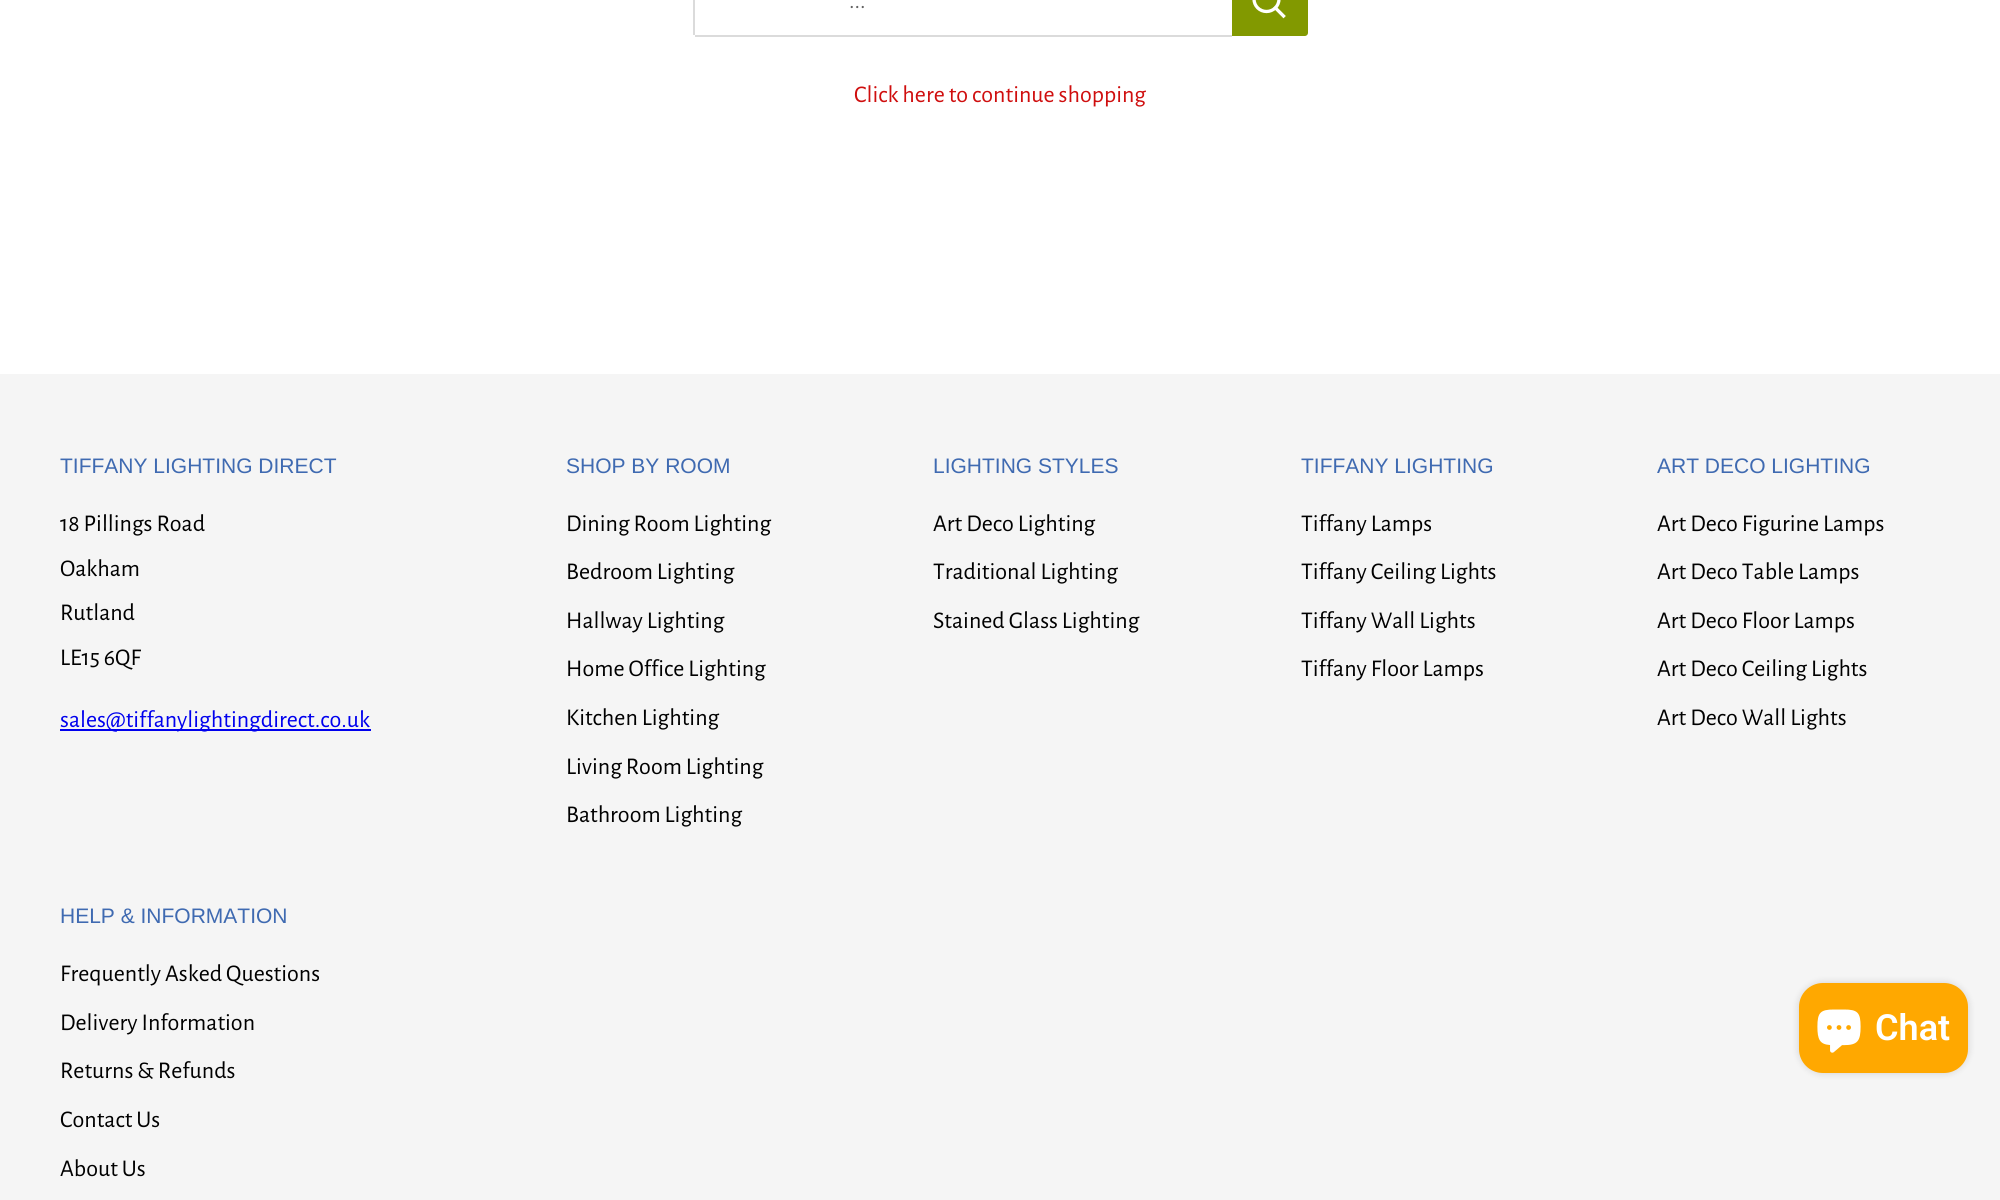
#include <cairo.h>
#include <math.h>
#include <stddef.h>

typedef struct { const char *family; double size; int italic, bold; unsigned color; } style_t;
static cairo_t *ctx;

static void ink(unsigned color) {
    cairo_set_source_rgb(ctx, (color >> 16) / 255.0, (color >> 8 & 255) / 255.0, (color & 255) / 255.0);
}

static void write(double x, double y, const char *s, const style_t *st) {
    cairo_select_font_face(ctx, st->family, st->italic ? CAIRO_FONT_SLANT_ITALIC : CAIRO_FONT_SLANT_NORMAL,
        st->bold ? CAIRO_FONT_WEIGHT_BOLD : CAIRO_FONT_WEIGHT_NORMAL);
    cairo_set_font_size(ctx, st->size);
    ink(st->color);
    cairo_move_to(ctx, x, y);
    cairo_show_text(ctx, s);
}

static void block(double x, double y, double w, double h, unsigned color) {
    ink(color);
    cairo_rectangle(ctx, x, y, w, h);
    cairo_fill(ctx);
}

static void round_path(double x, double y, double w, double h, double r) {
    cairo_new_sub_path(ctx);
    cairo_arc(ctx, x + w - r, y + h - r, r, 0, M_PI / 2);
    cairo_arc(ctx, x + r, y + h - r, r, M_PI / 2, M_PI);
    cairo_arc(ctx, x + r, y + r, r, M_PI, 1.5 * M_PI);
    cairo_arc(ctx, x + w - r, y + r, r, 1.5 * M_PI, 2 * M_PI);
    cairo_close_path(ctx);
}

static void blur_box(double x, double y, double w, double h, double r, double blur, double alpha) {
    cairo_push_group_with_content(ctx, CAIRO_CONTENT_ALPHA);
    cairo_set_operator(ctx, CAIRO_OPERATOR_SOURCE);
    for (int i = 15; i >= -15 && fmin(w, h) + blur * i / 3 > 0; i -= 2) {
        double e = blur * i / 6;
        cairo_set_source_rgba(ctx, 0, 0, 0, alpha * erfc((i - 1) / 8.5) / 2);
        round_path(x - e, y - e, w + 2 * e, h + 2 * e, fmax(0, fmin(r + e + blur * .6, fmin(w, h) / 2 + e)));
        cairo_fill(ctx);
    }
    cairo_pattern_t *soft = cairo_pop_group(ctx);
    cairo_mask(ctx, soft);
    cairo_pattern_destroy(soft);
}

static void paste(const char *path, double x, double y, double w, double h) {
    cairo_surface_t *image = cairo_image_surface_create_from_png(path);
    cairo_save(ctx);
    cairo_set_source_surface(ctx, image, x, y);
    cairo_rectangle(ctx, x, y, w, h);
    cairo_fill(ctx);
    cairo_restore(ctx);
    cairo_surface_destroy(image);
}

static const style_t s1 = {"Alegreya Sans", 24, 0, 0, 0x616161};
static const style_t s2 = {"Alegreya Sans", 24, 0, 0, 0xcf0e0e};
static const style_t s3 = {"Arimo", 21, 0, 0, 0x3f6ab1};
static const style_t s4 = {"Alegreya Sans", 24, 0, 0, 0x000000};
static const style_t s5 = {"Alegreya Sans", 24, 0, 0, 0x0000ee};
static const style_t s6 = {"Roboto SemiBold", 36, 0, 0, 0xffffff};

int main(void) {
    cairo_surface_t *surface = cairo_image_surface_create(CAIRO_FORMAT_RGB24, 2000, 1200);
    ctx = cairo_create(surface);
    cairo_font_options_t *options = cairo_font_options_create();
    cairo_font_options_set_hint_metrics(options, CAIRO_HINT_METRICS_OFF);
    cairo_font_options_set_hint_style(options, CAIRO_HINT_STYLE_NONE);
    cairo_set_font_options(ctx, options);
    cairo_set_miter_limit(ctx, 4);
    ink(0xffffff);
    cairo_paint(ctx);
    block(695, 35, 537, 2, 0xdbdbdb);
    block(693, 0, 2, 35, 0xdbdbdb);
    write(849, 8, "...", &s1);
    ink(0x829900);
    cairo_new_path(ctx);
    cairo_move_to(ctx, 1232, -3);
    cairo_line_to(ctx, 1305, -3);
    cairo_curve_to(ctx, 1306.5, -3, 1308, -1.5, 1308, 0);
    cairo_line_to(ctx, 1308, 33);
    cairo_curve_to(ctx, 1308, 34.5, 1306.5, 36, 1305, 36);
    cairo_line_to(ctx, 1232, 36);
    cairo_close_path(ctx);
    cairo_fill(ctx);
    cairo_new_path(ctx);
    cairo_move_to(ctx, 1283.5, 16);
    cairo_line_to(ctx, 1275.5, 8);
    ink(0xffffff);
    cairo_set_line_width(ctx, 3.3);
    cairo_set_line_cap(ctx, CAIRO_LINE_CAP_SQUARE);
    cairo_stroke(ctx);
    cairo_arc(ctx, 1266.5, -1, 12.5, 0, 2 * M_PI);
    cairo_set_line_cap(ctx, CAIRO_LINE_CAP_BUTT);
    cairo_stroke(ctx);
    write(854, 102, "Click here to continue shopping", &s2);
    block(0, 374, 2000, 826, 0xf5f5f5);
    write(60, 473, "TIFFANY LIGHTING DIRECT", &s3);
    write(60, 531, "18 Pillings Road", &s4);
    write(60, 576, "Oakham", &s4);
    write(60, 620, "Rutland", &s4);
    write(60, 665, "LE15 6QF", &s4);
    block(60, 729, 311, 2, 0x0000ee);
    write(60, 727, "sales@tiffanylightingdirect.co.uk", &s5);
    write(566, 473, "SHOP BY ROOM", &s3);
    write(566, 531, "Dining Room Lighting", &s4);
    write(566, 579, "Bedroom Lighting", &s4);
    write(566, 628, "Hallway Lighting", &s4);
    write(566, 676, "Home Office Lighting", &s4);
    write(566, 725, "Kitchen Lighting", &s4);
    write(566, 774, "Living Room Lighting", &s4);
    write(566, 822, "Bathroom Lighting", &s4);
    write(933, 473, "LIGHTING STYLES", &s3);
    write(933, 531, "Art Deco Lighting", &s4);
    write(933, 579, "Traditional Lighting", &s4);
    write(933, 628, "Stained Glass Lighting", &s4);
    write(1301, 473, "TIFFANY LIGHTING", &s3);
    write(1301, 531, "Tiffany Lamps", &s4);
    write(1301, 579, "Tiffany Ceiling Lights", &s4);
    write(1301, 628, "Tiffany Wall Lights", &s4);
    write(1301, 676, "Tiffany Floor Lamps", &s4);
    write(1657, 473, "ART DECO LIGHTING", &s3);
    write(1657, 531, "Art Deco Figurine Lamps", &s4);
    write(1657, 579, "Art Deco Table Lamps", &s4);
    write(1657, 628, "Art Deco Floor Lamps", &s4);
    write(1657, 676, "Art Deco Ceiling Lights", &s4);
    write(1657, 725, "Art Deco Wall Lights", &s4);
    write(60, 923, "HELP & INFORMATION", &s3);
    write(60, 981, "Frequently Asked Questions", &s4);
    write(60, 1030, "Delivery Information", &s4);
    write(60, 1078, "Returns & Refunds", &s4);
    write(60, 1127, "Contact Us", &s4);
    write(60, 1176, "About Us", &s4);
    ink(0x000000);
    blur_box(1799, 983, 169, 90, 24, 4, 0.15);
    ink(0xffa800);
    round_path(1799, 983, 169, 90, 24);
    cairo_fill(ctx);
    paste("pic1.png", 1817, 1009, 44, 44);
    write(1875, 1040, "Chat", &s6);
    cairo_surface_write_to_png(surface, "screenshot.png");
    cairo_font_options_destroy(options);
    cairo_destroy(ctx);
    cairo_surface_destroy(surface);
    return 0;
}
